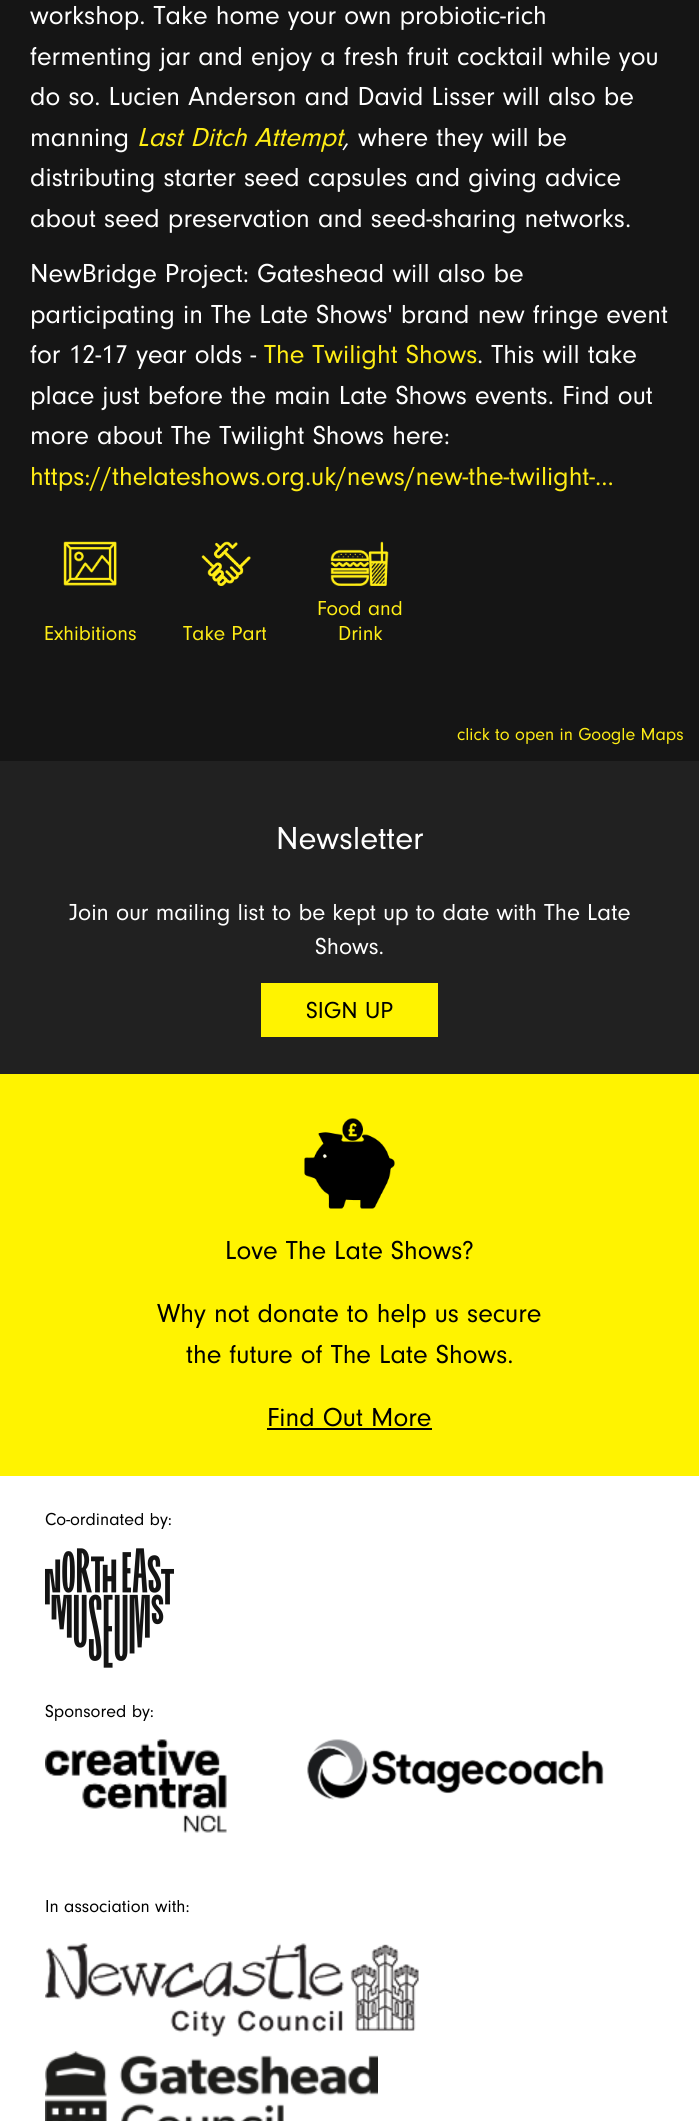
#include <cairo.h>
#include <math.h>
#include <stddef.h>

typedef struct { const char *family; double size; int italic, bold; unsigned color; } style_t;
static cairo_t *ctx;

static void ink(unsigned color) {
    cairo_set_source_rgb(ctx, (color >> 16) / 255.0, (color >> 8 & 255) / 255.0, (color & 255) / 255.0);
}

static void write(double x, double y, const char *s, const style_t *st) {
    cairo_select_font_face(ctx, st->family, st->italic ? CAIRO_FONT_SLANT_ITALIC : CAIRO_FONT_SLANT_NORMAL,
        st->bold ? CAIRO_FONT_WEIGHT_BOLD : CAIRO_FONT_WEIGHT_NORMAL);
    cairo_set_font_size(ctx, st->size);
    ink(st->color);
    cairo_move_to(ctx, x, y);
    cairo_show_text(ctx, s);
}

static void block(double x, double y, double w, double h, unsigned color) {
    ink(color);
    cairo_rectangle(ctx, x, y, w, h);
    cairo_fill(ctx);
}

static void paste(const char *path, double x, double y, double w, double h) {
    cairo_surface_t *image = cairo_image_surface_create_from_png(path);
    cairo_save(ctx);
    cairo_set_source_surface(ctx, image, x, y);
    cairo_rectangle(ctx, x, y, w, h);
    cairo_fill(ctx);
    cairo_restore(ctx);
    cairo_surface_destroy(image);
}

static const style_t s1 = {"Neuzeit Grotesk", 27, 0, 0, 0xffffff};
static const style_t s2 = {"Neuzeit Grotesk", 27, 1, 0, 0xffed15};
static const style_t s3 = {"Neuzeit Grotesk", 27, 1, 0, 0xffffff};
static const style_t s4 = {"Neuzeit Grotesk", 27, 0, 0, 0xffed15};
static const style_t s5 = {"Neuzeit Grotesk", 21, 0, 0, 0xffed15};
static const style_t s6 = {"Neuzeit Grotesk", 18, 0, 0, 0xffed15};
static const style_t s7 = {"Neuzeit Grotesk", 33, 0, 0, 0xffffff};
static const style_t s8 = {"Neuzeit Grotesk", 24, 0, 0, 0xffffff};
static const style_t s9 = {"Neuzeit Grotesk", 24, 0, 0, 0x000000};
static const style_t s10 = {"Neuzeit Grotesk", 27, 0, 0, 0x000000};
static const style_t s11 = {"Neuzeit Grotesk", 18, 0, 0, 0x000000};

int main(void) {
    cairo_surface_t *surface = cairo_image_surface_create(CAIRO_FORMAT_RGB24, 699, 2121);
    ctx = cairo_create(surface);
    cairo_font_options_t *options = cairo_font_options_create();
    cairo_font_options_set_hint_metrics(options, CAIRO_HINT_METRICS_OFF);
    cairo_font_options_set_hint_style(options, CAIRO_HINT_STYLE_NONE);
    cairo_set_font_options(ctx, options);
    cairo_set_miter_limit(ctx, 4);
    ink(0x151515);
    cairo_paint(ctx);
    write(30, 24, "workshop. Take home your own probiotic-rich", &s1);
    write(30, 65, "fermenting jar and enjoy a fresh fruit cocktail while you", &s1);
    write(30, 105, "do so. Lucien Anderson and David Lisser will also be", &s1);
    write(30, 146, "manning", &s1);
    write(137, 146, "Last Ditch Attempt", &s2);
    write(358, 146, "where they will be", &s1);
    write(343, 146, ",", &s3);
    write(30, 186, "distributing starter seed capsules and giving advice", &s1);
    write(30, 227, "about seed preservation and seed-sharing networks.", &s1);
    write(30, 282, "NewBridge Project: Gateshead will also be", &s1);
    write(30, 323, "participating in The Late Shows' brand new fringe event", &s1);
    write(30, 363, "for 12-17 year olds -", &s1);
    write(264, 363, "The Twilight Shows", &s4);
    write(477, 363, ". This will take", &s1);
    write(30, 404, "place just before the main Late Shows events. Find out", &s1);
    write(30, 444, "more about The Twilight Shows here:", &s1);
    write(30, 485, "https://thelateshows.org.uk/news/new-the-twilight-...", &s4);
    paste("pic1.png", 63, 541, 54, 45);
    write(44, 640, "Exhibitions", &s5);
    paste("pic2.png", 201, 541, 50, 45);
    write(183, 640, "Take Part", &s5);
    paste("pic3.png", 330, 541, 59, 45);
    write(317, 615, "Food and", &s5);
    write(338, 640, "Drink", &s5);
    write(457, 740, "click to open in Google Maps", &s6);
    block(0, 1476, 699, 645, 0xffffff);
    block(0, 761, 699, 313, 0x212121);
    write(276, 849, "Newsletter", &s7);
    write(69, 920, "Join our mailing list to be kept up to date with The Late", &s8);
    write(315, 954, "Shows.", &s8);
    block(261, 983, 177, 54, 0xfff300);
    write(306, 1018, "SIGN UP", &s9);
    block(0, 1074, 699, 402, 0xfff300);
    paste("pic4.png", 304, 1118, 91, 91);
    write(225, 1259, "Love The Late Shows?", &s10);
    write(157, 1322, "Why not donate to help us secure", &s10);
    write(186, 1363, "the future of The Late Shows.", &s10);
    write(267, 1426, "Find Out More", &s10);
    block(267, 1428, 165, 2, 0x000000);
    write(45, 1525, "Co-ordinated by:", &s11);
    paste("pic5.png", 45, 1548, 129, 120);
    write(45, 1717, "Sponsored by:", &s11);
    paste("pic6.png", 45, 1739, 182, 94);
    paste("pic7.png", 307, 1739, 297, 61);
    write(45, 1912, "In association with:", &s11);
    paste("pic8.png", 45, 1943, 374, 94);
    paste("pic9.png", 45, 2051, 333, 70);
    cairo_surface_write_to_png(surface, "screenshot.png");
    cairo_font_options_destroy(options);
    cairo_destroy(ctx);
    cairo_surface_destroy(surface);
    return 0;
}
